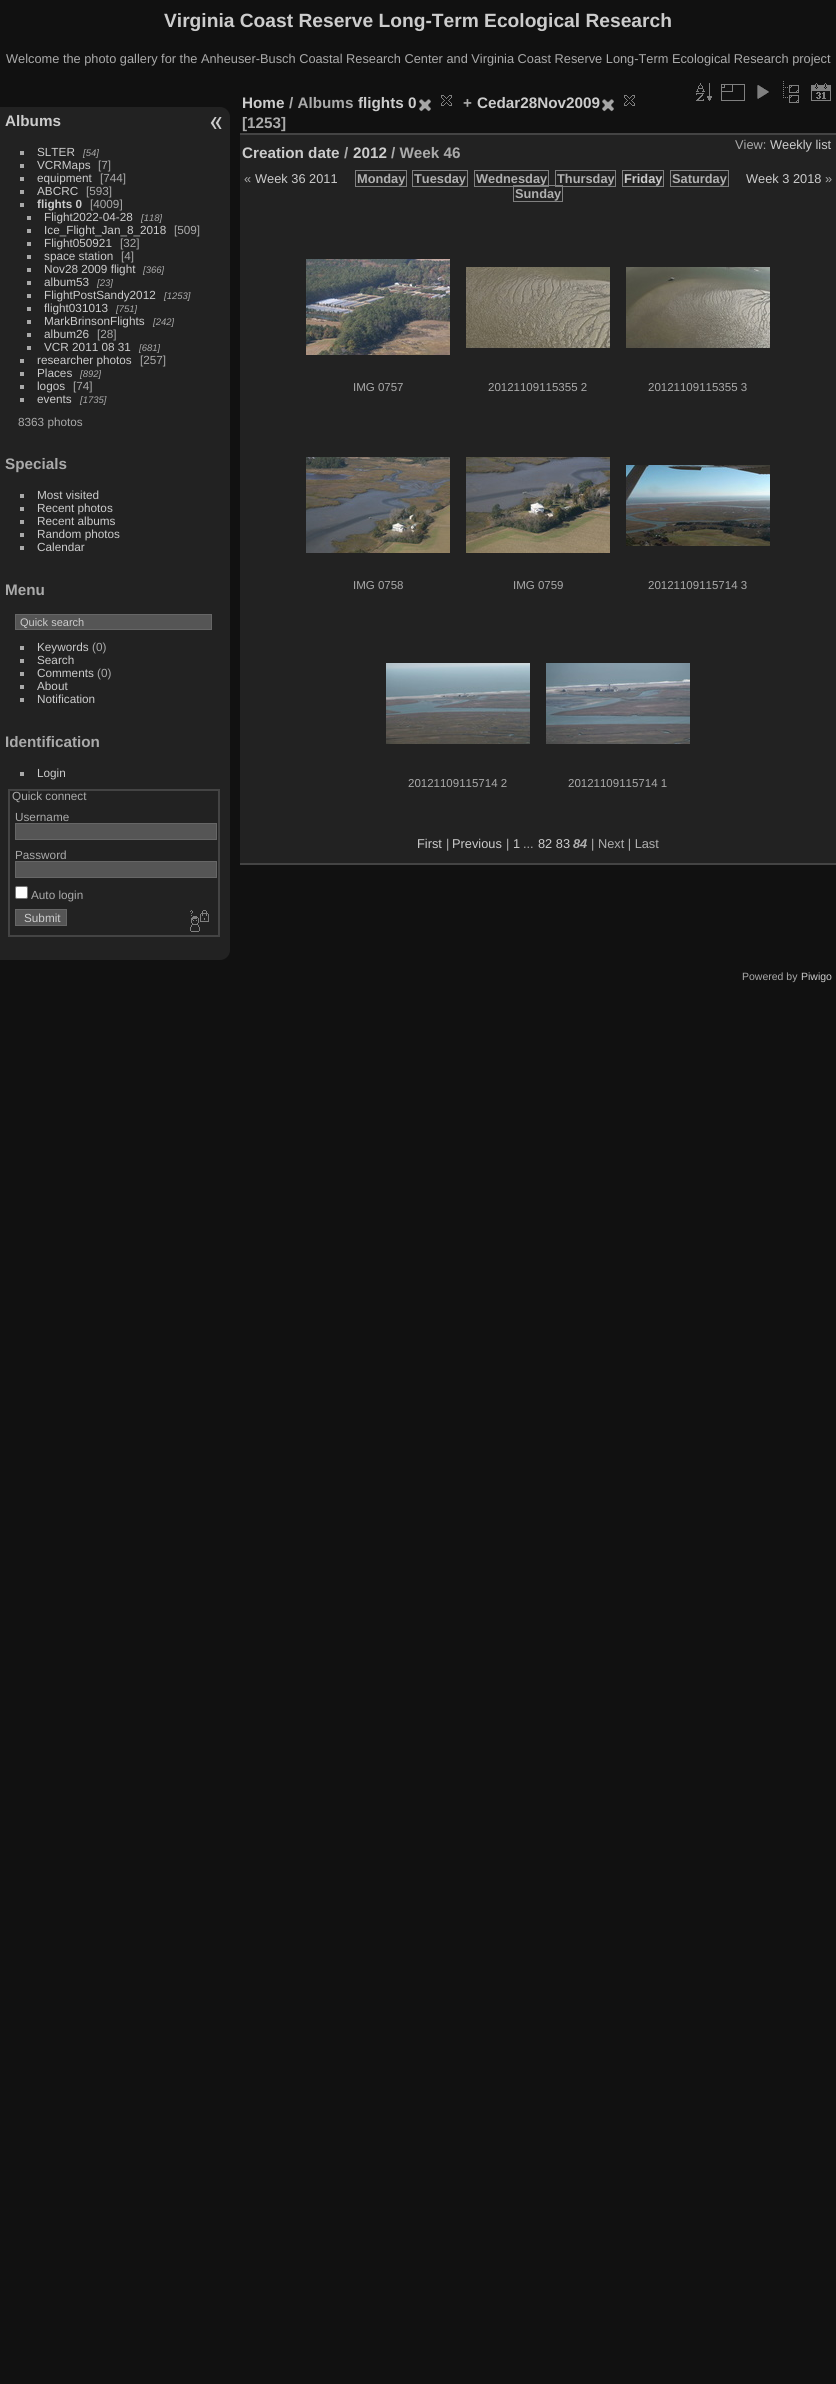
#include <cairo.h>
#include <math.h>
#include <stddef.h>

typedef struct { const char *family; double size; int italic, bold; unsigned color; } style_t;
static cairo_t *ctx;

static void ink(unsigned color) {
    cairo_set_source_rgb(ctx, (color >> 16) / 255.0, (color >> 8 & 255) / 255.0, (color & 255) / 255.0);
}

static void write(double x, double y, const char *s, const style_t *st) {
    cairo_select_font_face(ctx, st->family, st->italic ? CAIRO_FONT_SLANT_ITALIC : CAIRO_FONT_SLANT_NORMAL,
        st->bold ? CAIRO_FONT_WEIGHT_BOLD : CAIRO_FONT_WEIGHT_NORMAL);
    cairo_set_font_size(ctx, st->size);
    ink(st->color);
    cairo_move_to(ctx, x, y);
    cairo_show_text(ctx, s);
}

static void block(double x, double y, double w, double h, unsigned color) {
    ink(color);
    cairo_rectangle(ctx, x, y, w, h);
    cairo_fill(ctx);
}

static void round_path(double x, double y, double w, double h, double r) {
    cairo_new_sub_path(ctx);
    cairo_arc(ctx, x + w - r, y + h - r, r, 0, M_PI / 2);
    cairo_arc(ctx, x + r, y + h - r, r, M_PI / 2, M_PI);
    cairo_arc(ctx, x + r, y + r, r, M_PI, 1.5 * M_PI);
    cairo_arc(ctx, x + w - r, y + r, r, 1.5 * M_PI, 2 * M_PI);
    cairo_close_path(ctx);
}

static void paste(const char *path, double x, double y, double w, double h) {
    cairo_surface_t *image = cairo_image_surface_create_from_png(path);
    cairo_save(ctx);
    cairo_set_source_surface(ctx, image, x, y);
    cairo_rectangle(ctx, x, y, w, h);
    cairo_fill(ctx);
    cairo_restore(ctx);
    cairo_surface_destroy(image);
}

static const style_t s1 = {"Liberation Sans", 19.2, 0, 1, 0xcccccc};
static const style_t s2 = {"Liberation Sans", 12.8, 0, 0, 0xaaaaaa};
static const style_t s3 = {"Liberation Sans", 15.25, 0, 1, 0xcccccc};
static const style_t s4 = {"Liberation Sans", 11.75, 0, 0, 0xcccccc};
static const style_t s5 = {"Liberation Sans", 9.5, 1, 0, 0xaaaaaa};
static const style_t s6 = {"Liberation Sans", 11.75, 0, 0, 0xaaaaaa};
static const style_t s7 = {"Liberation Sans", 11.75, 0, 1, 0xcccccc};
static const style_t s8 = {"Liberation Sans", 15.25, 0, 1, 0xaaaaaa};
static const style_t s9 = {"Liberation Sans", 11, 0, 0, 0xcccccc};
static const style_t s10 = {"Liberation Sans", 12.8, 0, 0, 0xcccccc};
static const style_t s11 = {"Liberation Sans", 12.8, 0, 1, 0xb0b0b0};
static const style_t s12 = {"Liberation Sans", 12.8, 0, 1, 0xcccccc};
static const style_t s13 = {"Liberation Sans", 11.5, 0, 0, 0xaaaaaa};
static const style_t s14 = {"Liberation Sans", 12.8, 0, 0, 0xb0b0b0};
static const style_t s15 = {"Liberation Sans", 12.8, 1, 1, 0xb0b0b0};
static const style_t s16 = {"Liberation Sans", 10.5, 0, 0, 0xaaaaaa};
static const style_t s17 = {"Liberation Sans", 10.5, 0, 0, 0xcccccc};

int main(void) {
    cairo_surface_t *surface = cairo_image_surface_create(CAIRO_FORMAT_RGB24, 836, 2384);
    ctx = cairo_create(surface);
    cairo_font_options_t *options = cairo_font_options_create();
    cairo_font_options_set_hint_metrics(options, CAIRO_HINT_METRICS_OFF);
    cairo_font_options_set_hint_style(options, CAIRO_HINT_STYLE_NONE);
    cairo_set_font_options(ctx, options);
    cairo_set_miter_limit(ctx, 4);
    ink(0x111111);
    cairo_paint(ctx);
    write(164, 27, "Virginia Coast Reserve Long-Term Ecological Research", &s1);
    write(6, 63, "Welcome the photo gallery for the Anheuser-Busch Coastal Research Center and Virginia Coast Reserve Long-Term Ecological Research project", &s2);
    ink(0x222222);
    cairo_new_path(ctx);
    cairo_move_to(ctx, 0, 107);
    cairo_line_to(ctx, 220, 107);
    cairo_curve_to(ctx, 225.5, 107, 230, 111.5, 230, 117);
    cairo_line_to(ctx, 230, 950);
    cairo_curve_to(ctx, 230, 955.5, 225.5, 960, 220, 960);
    cairo_line_to(ctx, 0, 960);
    cairo_close_path(ctx);
    cairo_fill(ctx);
    write(5, 126, "Albums", &s3);
    block(20, 151, 4, 4, 0xaaaaaa);
    write(37, 156, "SLTER", &s4);
    write(83, 156, "[54]", &s5);
    block(20, 164, 4, 4, 0xaaaaaa);
    write(37, 169, "VCRMaps", &s4);
    write(98, 169, "[7]", &s6);
    block(20, 177, 4, 4, 0xaaaaaa);
    write(37, 182, "equipment", &s4);
    write(100, 182, "[744]", &s6);
    block(20, 190, 4, 4, 0xaaaaaa);
    write(37, 195, "ABCRC", &s4);
    write(86, 195, "[593]", &s6);
    block(20, 203, 4, 4, 0xaaaaaa);
    write(37, 208, "flights 0", &s7);
    write(90, 208, "[4009]", &s6);
    block(27, 216, 4, 4, 0xaaaaaa);
    write(44, 221, "Flight2022-04-28", &s4);
    write(141, 221, "[118]", &s5);
    block(27, 229, 4, 4, 0xaaaaaa);
    write(44, 234, "Ice_Flight_Jan_8_2018", &s4);
    write(174, 234, "[509]", &s6);
    block(27, 242, 4, 4, 0xaaaaaa);
    write(44, 247, "Flight050921", &s4);
    write(120, 247, "[32]", &s6);
    block(27, 255, 4, 4, 0xaaaaaa);
    write(44, 260, "space station", &s4);
    write(121, 260, "[4]", &s6);
    block(27, 268, 4, 4, 0xaaaaaa);
    write(44, 273, "Nov28 2009 flight", &s4);
    write(143, 273, "[366]", &s5);
    block(27, 281, 4, 4, 0xaaaaaa);
    write(44, 286, "album53", &s4);
    write(97, 286, "[23]", &s5);
    block(27, 294, 4, 4, 0xaaaaaa);
    write(44, 299, "FlightPostSandy2012", &s4);
    write(164, 299, "[1253]", &s5);
    block(27, 307, 4, 4, 0xaaaaaa);
    write(44, 312, "flight031013", &s4);
    write(116, 312, "[751]", &s5);
    block(27, 320, 4, 4, 0xaaaaaa);
    write(44, 325, "MarkBrinsonFlights", &s4);
    write(153, 325, "[242]", &s5);
    block(27, 333, 4, 4, 0xaaaaaa);
    write(44, 338, "album26", &s4);
    write(97, 338, "[28]", &s6);
    block(27, 346, 4, 4, 0xaaaaaa);
    write(44, 351, "VCR 2011 08 31", &s4);
    write(139, 351, "[681]", &s5);
    block(20, 359, 4, 4, 0xaaaaaa);
    write(37, 364, "researcher photos", &s4);
    write(140, 364, "[257]", &s6);
    block(20, 372, 4, 4, 0xaaaaaa);
    write(37, 377, "Places", &s4);
    write(80, 377, "[892]", &s5);
    block(20, 385, 4, 4, 0xaaaaaa);
    write(37, 390, "logos", &s4);
    write(73, 390, "[74]", &s6);
    block(20, 398, 4, 4, 0xaaaaaa);
    write(37, 403, "events", &s4);
    write(80, 403, "[1735]", &s5);
    write(18, 426, "8363 photos", &s6);
    write(5, 469, "Specials", &s8);
    block(20, 494, 4, 4, 0xaaaaaa);
    write(37, 499, "Most visited", &s4);
    block(20, 507, 4, 4, 0xaaaaaa);
    write(37, 512, "Recent photos", &s4);
    block(20, 520, 4, 4, 0xaaaaaa);
    write(37, 525, "Recent albums", &s4);
    block(20, 533, 4, 4, 0xaaaaaa);
    write(37, 538, "Random photos", &s4);
    block(20, 546, 4, 4, 0xaaaaaa);
    write(37, 551, "Calendar", &s4);
    write(5, 595, "Menu", &s8);
    ink(0x555555);
    cairo_rectangle(ctx, 15.5, 614.5, 196, 15);
    cairo_fill_preserve(ctx);
    ink(0x666666);
    cairo_set_line_width(ctx, 1);
    cairo_stroke(ctx);
    write(20, 626, "Quick search", &s9);
    block(20, 646, 4, 4, 0xaaaaaa);
    write(37, 651, "Keywords", &s4);
    write(92, 651, "(0)", &s6);
    block(20, 659, 4, 4, 0xaaaaaa);
    write(37, 664, "Search", &s4);
    block(20, 672, 4, 4, 0xaaaaaa);
    write(37, 677, "Comments", &s4);
    write(97, 677, "(0)", &s6);
    block(20, 685, 4, 4, 0xaaaaaa);
    write(37, 690, "About", &s4);
    block(20, 698, 4, 4, 0xaaaaaa);
    write(37, 703, "Notification", &s4);
    write(5, 747, "Identification", &s8);
    block(20, 772, 4, 4, 0xaaaaaa);
    write(37, 777, "Login", &s4);
    cairo_rectangle(ctx, 9, 790, 210, 146);
    ink(0x444444);
    cairo_set_line_width(ctx, 2);
    cairo_stroke(ctx);
    write(12, 800, "Quick connect", &s6);
    write(15, 821, "Username", &s6);
    ink(0x555555);
    cairo_rectangle(ctx, 15.5, 823.5, 201, 16);
    cairo_fill_preserve(ctx);
    ink(0x666666);
    cairo_set_line_width(ctx, 1);
    cairo_stroke(ctx);
    write(15, 859, "Password", &s6);
    ink(0x555555);
    cairo_rectangle(ctx, 15.5, 861.5, 201, 16);
    cairo_fill_preserve(ctx);
    ink(0x666666);
    cairo_stroke(ctx);
    ink(0xffffff);
    round_path(15.5, 886.5, 12, 12, 1.5);
    cairo_fill_preserve(ctx);
    ink(0x767676);
    cairo_stroke(ctx);
    write(31, 899, "Auto login", &s6);
    ink(0x555555);
    cairo_rectangle(ctx, 15.5, 909.5, 51, 16);
    cairo_fill_preserve(ctx);
    ink(0x666666);
    cairo_stroke(ctx);
    write(24, 922, "Submit", &s4);
    paste("pic1.png", 190, 910, 19, 22);
    paste("pic2.png", 210, 117, 12, 12);
    block(240, 135, 596, 728, 0x222222);
    block(240, 863, 596, 2, 0x444444);
    paste("pic3.png", 696, 83, 16, 18);
    paste("pic4.png", 721, 84, 24, 17);
    paste("pic5.png", 757, 85, 12, 14);
    paste("pic6.png", 783, 81, 16, 22);
    paste("pic7.png", 811, 83, 20, 18);
    write(242, 108, "Home", &s3);
    write(289, 108, "/ Albums", &s8);
    write(358, 108, "flights 0", &s3);
    paste("pic8.png", 419, 99, 12, 13);
    paste("pic9.png", 441, 95, 11, 11);
    write(463, 108, "+", &s8);
    write(477, 108, "Cedar28Nov2009", &s3);
    paste("pic8.png", 602, 99, 12, 13);
    paste("pic9.png", 624, 95, 11, 11);
    write(242, 128, "[1253]", &s8);
    block(240, 133, 596, 2, 0x444444);
    write(242, 158, "Creation date", &s3);
    write(344, 158, "/", &s8);
    write(353, 158, "2012", &s3);
    write(391, 158, "/ Week 46", &s8);
    write(735, 149, "View:", &s2);
    write(770, 149, "Weekly list", &s10);
    write(244, 183, "«", &s2);
    write(255, 183, "Week 36 2011", &s10);
    cairo_rectangle(ctx, 355.5, 170.5, 51, 16);
    ink(0x808080);
    cairo_stroke(ctx);
    write(357, 183, "Monday", &s11);
    cairo_rectangle(ctx, 412.5, 170.5, 55, 16);
    ink(0x808080);
    cairo_stroke(ctx);
    write(414, 183, "Tuesday", &s11);
    cairo_rectangle(ctx, 474.5, 170.5, 74, 16);
    ink(0x808080);
    cairo_stroke(ctx);
    write(476, 183, "Wednesday", &s11);
    cairo_rectangle(ctx, 555.5, 170.5, 60, 16);
    ink(0x808080);
    cairo_stroke(ctx);
    write(557, 183, "Thursday", &s11);
    cairo_rectangle(ctx, 622.5, 170.5, 41, 16);
    ink(0x808080);
    cairo_stroke(ctx);
    write(624, 183, "Friday", &s12);
    cairo_rectangle(ctx, 670.5, 170.5, 58, 16);
    ink(0x808080);
    cairo_stroke(ctx);
    write(672, 183, "Saturday", &s11);
    write(746, 183, "Week 3 2018", &s10);
    write(825, 183, "»", &s2);
    cairo_rectangle(ctx, 513.5, 185.5, 49, 16);
    ink(0x808080);
    cairo_stroke(ctx);
    write(515, 198, "Sunday", &s11);
    paste("pic10.png", 306, 259, 144, 96);
    write(353, 391, "IMG 0757", &s13);
    paste("pic11.png", 466, 267, 144, 81);
    write(488, 391, "20121109115355 2", &s13);
    paste("pic12.png", 626, 267, 144, 81);
    write(648, 391, "20121109115355 3", &s13);
    paste("pic13.png", 306, 457, 144, 96);
    write(353, 589, "IMG 0758", &s13);
    paste("pic14.png", 466, 457, 144, 96);
    write(513, 589, "IMG 0759", &s13);
    paste("pic15.png", 626, 465, 144, 81);
    write(648, 589, "20121109115714 3", &s13);
    paste("pic16.png", 386, 663, 144, 81);
    write(408, 787, "20121109115714 2", &s13);
    paste("pic17.png", 546, 663, 144, 81);
    write(568, 787, "20121109115714 1", &s13);
    write(417, 848, "First", &s10);
    write(446, 848, "|", &s14);
    write(452, 848, "Previous", &s10);
    write(506, 848, "|", &s14);
    write(513, 848, "1", &s10);
    write(523, 848, "...", &s14);
    write(538, 848, "82 83", &s10);
    write(573, 848, "84", &s15);
    write(591, 848, "| Next | Last", &s14);
    write(742, 980, "Powered by", &s16);
    write(801, 980, "Piwigo", &s17);
    cairo_surface_write_to_png(surface, "screenshot.png");
    cairo_font_options_destroy(options);
    cairo_destroy(ctx);
    cairo_surface_destroy(surface);
    return 0;
}
